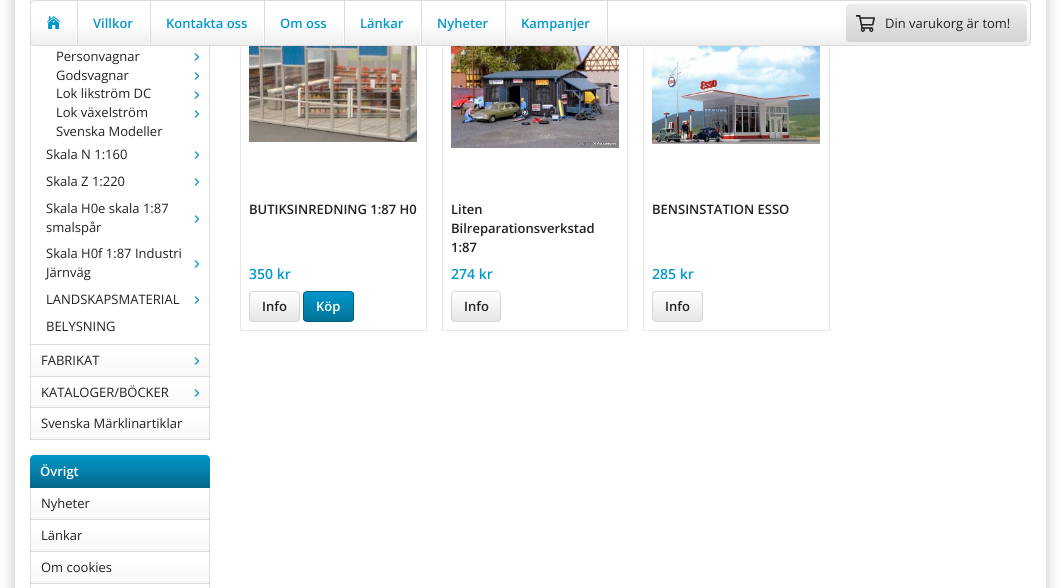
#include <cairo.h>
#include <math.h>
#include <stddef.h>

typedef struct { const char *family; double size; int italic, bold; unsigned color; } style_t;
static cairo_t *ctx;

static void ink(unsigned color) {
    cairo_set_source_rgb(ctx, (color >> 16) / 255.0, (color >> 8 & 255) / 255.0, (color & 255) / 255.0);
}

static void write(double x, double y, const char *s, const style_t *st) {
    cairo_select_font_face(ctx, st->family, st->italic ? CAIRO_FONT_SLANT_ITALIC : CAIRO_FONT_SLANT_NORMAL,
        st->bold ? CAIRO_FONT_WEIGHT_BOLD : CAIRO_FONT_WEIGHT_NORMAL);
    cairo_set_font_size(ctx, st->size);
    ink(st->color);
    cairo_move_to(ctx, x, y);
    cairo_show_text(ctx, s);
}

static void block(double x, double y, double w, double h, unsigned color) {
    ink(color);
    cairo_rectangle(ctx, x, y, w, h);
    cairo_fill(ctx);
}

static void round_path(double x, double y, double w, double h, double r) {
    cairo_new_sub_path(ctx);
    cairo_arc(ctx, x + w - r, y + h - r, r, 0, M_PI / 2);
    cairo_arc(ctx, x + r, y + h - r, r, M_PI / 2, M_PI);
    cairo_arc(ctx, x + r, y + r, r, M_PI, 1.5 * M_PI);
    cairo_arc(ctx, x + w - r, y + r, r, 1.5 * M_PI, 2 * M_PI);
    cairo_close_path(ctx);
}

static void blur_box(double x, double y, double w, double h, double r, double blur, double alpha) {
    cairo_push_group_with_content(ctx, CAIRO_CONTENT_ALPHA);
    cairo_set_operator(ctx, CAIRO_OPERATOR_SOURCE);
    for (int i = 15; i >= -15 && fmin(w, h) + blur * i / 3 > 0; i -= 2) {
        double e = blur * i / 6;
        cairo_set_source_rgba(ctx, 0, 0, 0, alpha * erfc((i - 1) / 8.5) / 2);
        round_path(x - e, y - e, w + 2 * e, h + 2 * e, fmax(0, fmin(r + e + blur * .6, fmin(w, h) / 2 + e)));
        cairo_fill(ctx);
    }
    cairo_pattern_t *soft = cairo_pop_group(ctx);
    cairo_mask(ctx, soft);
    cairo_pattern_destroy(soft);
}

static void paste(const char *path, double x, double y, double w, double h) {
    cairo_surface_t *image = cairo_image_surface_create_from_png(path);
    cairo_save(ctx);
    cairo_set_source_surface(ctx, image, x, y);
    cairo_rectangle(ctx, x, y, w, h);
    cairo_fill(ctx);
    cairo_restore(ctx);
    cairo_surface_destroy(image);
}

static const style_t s1 = {"Open Sans SemiBold", 13, 0, 0, 0x0198cb};
static const style_t s2 = {"Open Sans", 13, 0, 0, 0x222222};
static const style_t s3 = {"Open Sans SemiBold", 13, 0, 0, 0xffffff};
static const style_t s4 = {"Open Sans SemiBold", 13, 0, 0, 0x222222};
static const style_t s5 = {"Open Sans SemiBold", 14, 0, 0, 0x0198cb};

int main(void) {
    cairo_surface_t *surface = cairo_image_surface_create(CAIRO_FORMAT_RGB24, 1061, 588);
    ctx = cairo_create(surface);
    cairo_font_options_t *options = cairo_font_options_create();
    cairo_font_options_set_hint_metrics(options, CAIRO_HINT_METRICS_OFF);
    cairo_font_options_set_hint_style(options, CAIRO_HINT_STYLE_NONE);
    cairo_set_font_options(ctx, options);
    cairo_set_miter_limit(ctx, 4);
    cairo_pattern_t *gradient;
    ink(0xffffff);
    cairo_paint(ctx);
    cairo_save(ctx);
    cairo_set_fill_rule(ctx, CAIRO_FILL_RULE_EVEN_ODD);
    cairo_new_path(ctx);
    cairo_move_to(ctx, 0, 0);
    cairo_line_to(ctx, 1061, 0);
    cairo_line_to(ctx, 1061, 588);
    cairo_line_to(ctx, 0, 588);
    cairo_close_path(ctx);
    cairo_move_to(ctx, 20, -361);
    cairo_line_to(ctx, 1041, -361);
    cairo_curve_to(ctx, 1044, -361, 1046, -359, 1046, -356);
    cairo_line_to(ctx, 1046, 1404);
    cairo_curve_to(ctx, 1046, 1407, 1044, 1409, 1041, 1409);
    cairo_line_to(ctx, 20, 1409);
    cairo_curve_to(ctx, 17, 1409, 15, 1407, 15, 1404);
    cairo_line_to(ctx, 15, -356);
    cairo_curve_to(ctx, 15, -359, 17, -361, 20, -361);
    cairo_close_path(ctx);
    cairo_clip(ctx);
    ink(0x000000);
    blur_box(15, -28, 1031, 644, 5, 7.5, 0.25);
    cairo_restore(ctx);
    block(30, 0, 1, 440, 0xdcdcdc);
    cairo_rectangle(ctx, 240.5, -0.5, 186, 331);
    ink(0xe9e9e9);
    cairo_set_line_width(ctx, 1);
    cairo_stroke(ctx);
    cairo_rectangle(ctx, 442.5, -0.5, 185, 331);
    cairo_stroke(ctx);
    cairo_rectangle(ctx, 643.5, -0.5, 186, 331);
    cairo_stroke(ctx);
    cairo_save(ctx);
    round_path(30, 0, 1001, 46, 5);
    cairo_clip(ctx);
    gradient = cairo_pattern_create_linear(531, 1, 531, 45);
    cairo_pattern_add_color_stop_rgba(gradient, 0.5, 1, 1, 1, 1);
    cairo_pattern_add_color_stop_rgba(gradient, 1, 0.933, 0.933, 0.933, 1);
    cairo_set_source(ctx, gradient);
    cairo_pattern_destroy(gradient);
    cairo_rectangle(ctx, 30, 1, 1001, 44);
    cairo_fill(ctx);
    cairo_restore(ctx);
    round_path(30.5, 0.5, 1000, 45, 4.5);
    ink(0xdcdcdc);
    cairo_stroke(ctx);
    block(77, 1, 1, 44, 0xdcdcdc);
    block(76, 26, 1, 19, 0xffffff);
    paste("pic1.png", 47, 16, 14, 14);
    block(150, 1, 1, 44, 0xdcdcdc);
    block(149, 26, 1, 19, 0xffffff);
    write(93, 28, "Villkor", &s1);
    block(264, 1, 1, 44, 0xdcdcdc);
    block(263, 26, 1, 19, 0xffffff);
    write(166, 28, "Kontakta oss", &s1);
    block(344, 1, 1, 44, 0xdcdcdc);
    block(343, 26, 1, 19, 0xffffff);
    write(280, 28, "Om oss", &s1);
    block(421, 1, 1, 44, 0xdcdcdc);
    block(420, 26, 1, 19, 0xffffff);
    write(360, 28, "Länkar", &s1);
    block(505, 1, 1, 44, 0xdcdcdc);
    block(504, 26, 1, 19, 0xffffff);
    write(437, 28, "Nyheter", &s1);
    block(607, 1, 1, 44, 0xdcdcdc);
    block(606, 26, 1, 19, 0xffffff);
    write(521, 28, "Kampanjer", &s1);
    gradient = cairo_pattern_create_linear(937, 4, 937, 42);
    cairo_pattern_add_color_stop_rgba(gradient, 0, 0.929, 0.929, 0.929, 1);
    cairo_pattern_add_color_stop_rgba(gradient, 1, 0.827, 0.827, 0.827, 1);
    cairo_set_source(ctx, gradient);
    cairo_pattern_destroy(gradient);
    round_path(846, 4, 181, 38, 4);
    cairo_fill(ctx);
    paste("pic2.png", 856, 15, 19, 17);
    write(885, 28, "Din varukorg är tom!", &s2);
    block(209, 46, 1, 394, 0xdcdcdc);
    block(31, 344, 178, 1, 0xdcdcdc);
    write(56, 61, "Personvagnar", &s2);
    paste("pic3.png", 194, 53, 6, 8);
    write(56, 80, "Godsvagnar", &s2);
    paste("pic3.png", 194, 72, 6, 8);
    write(56, 98, "Lok likström DC", &s2);
    paste("pic3.png", 194, 91, 6, 8);
    write(56, 117, "Lok växelström", &s2);
    paste("pic3.png", 194, 110, 6, 8);
    write(56, 136, "Svenska Modeller", &s2);
    write(46, 159, "Skala N 1:160", &s2);
    paste("pic3.png", 194, 151, 6, 8);
    write(46, 186, "Skala Z 1:220", &s2);
    paste("pic3.png", 194, 178, 6, 8);
    write(46, 213, "Skala H0e skala 1:87", &s2);
    paste("pic3.png", 194, 215, 6, 8);
    write(46, 232, "smalspår", &s2);
    write(46, 258, "Skala H0f 1:87 Industri", &s2);
    paste("pic3.png", 194, 260, 6, 8);
    write(46, 277, "Järnväg", &s2);
    write(46, 304, "LANDSKAPSMATERIAL", &s2);
    paste("pic3.png", 194, 296, 6, 8);
    write(46, 331, "BELYSNING", &s2);
    gradient = cairo_pattern_create_linear(120, 345, 120, 376);
    cairo_pattern_add_color_stop_rgba(gradient, 0, 1, 1, 1, 1);
    cairo_pattern_add_color_stop_rgba(gradient, 1, 0.973, 0.973, 0.973, 1);
    cairo_set_source(ctx, gradient);
    cairo_pattern_destroy(gradient);
    cairo_rectangle(ctx, 31, 356, 178, 20);
    cairo_fill(ctx);
    block(31, 376, 178, 1, 0xdcdcdc);
    write(41, 365, "FABRIKAT", &s2);
    paste("pic4.png", 194, 357, 6, 8);
    gradient = cairo_pattern_create_linear(120, 377, 120, 407);
    cairo_pattern_add_color_stop_rgba(gradient, 0, 1, 1, 1, 1);
    cairo_pattern_add_color_stop_rgba(gradient, 1, 0.973, 0.973, 0.973, 1);
    cairo_set_source(ctx, gradient);
    cairo_pattern_destroy(gradient);
    cairo_rectangle(ctx, 31, 388, 178, 19);
    cairo_fill(ctx);
    block(31, 407, 178, 1, 0xdcdcdc);
    write(41, 397, "KATALOGER/BÖCKER", &s2);
    paste("pic5.png", 194, 389, 6, 8);
    gradient = cairo_pattern_create_linear(120, 408, 120, 439);
    cairo_pattern_add_color_stop_rgba(gradient, 0, 1, 1, 1, 1);
    cairo_pattern_add_color_stop_rgba(gradient, 1, 0.973, 0.973, 0.973, 1);
    cairo_set_source(ctx, gradient);
    cairo_pattern_destroy(gradient);
    cairo_rectangle(ctx, 31, 419, 178, 20);
    cairo_fill(ctx);
    block(31, 439, 178, 1, 0xdcdcdc);
    write(41, 428, "Svenska Märklinartiklar", &s2);
    gradient = cairo_pattern_create_linear(120, 455, 120, 488);
    cairo_pattern_add_color_stop_rgba(gradient, 0, 0.016, 0.588, 0.784, 1);
    cairo_pattern_add_color_stop_rgba(gradient, 1, 0.012, 0.412, 0.549, 1);
    cairo_set_source(ctx, gradient);
    cairo_pattern_destroy(gradient);
    cairo_new_path(ctx);
    cairo_move_to(ctx, 34, 455);
    cairo_line_to(ctx, 206, 455);
    cairo_curve_to(ctx, 208, 455, 210, 457, 210, 459);
    cairo_line_to(ctx, 210, 488);
    cairo_line_to(ctx, 30, 488);
    cairo_line_to(ctx, 30, 459);
    cairo_curve_to(ctx, 30, 457, 32, 455, 34, 455);
    cairo_close_path(ctx);
    cairo_fill(ctx);
    write(40, 476, "Övrigt", &s3);
    block(209, 488, 1, 100, 0xdcdcdc);
    block(30, 488, 1, 100, 0xdcdcdc);
    gradient = cairo_pattern_create_linear(120, 488, 120, 519);
    cairo_pattern_add_color_stop_rgba(gradient, 0, 1, 1, 1, 1);
    cairo_pattern_add_color_stop_rgba(gradient, 1, 0.973, 0.973, 0.973, 1);
    cairo_set_source(ctx, gradient);
    cairo_pattern_destroy(gradient);
    cairo_rectangle(ctx, 31, 499, 178, 20);
    cairo_fill(ctx);
    block(31, 519, 178, 1, 0xdcdcdc);
    write(41, 508, "Nyheter", &s2);
    gradient = cairo_pattern_create_linear(120, 520, 120, 551);
    cairo_pattern_add_color_stop_rgba(gradient, 0, 1, 1, 1, 1);
    cairo_pattern_add_color_stop_rgba(gradient, 1, 0.973, 0.973, 0.973, 1);
    cairo_set_source(ctx, gradient);
    cairo_pattern_destroy(gradient);
    cairo_rectangle(ctx, 31, 531, 178, 20);
    cairo_fill(ctx);
    block(31, 551, 178, 1, 0xdcdcdc);
    write(41, 540, "Länkar", &s2);
    gradient = cairo_pattern_create_linear(120, 552, 120, 583);
    cairo_pattern_add_color_stop_rgba(gradient, 0, 1, 1, 1, 1);
    cairo_pattern_add_color_stop_rgba(gradient, 1, 0.973, 0.973, 0.973, 1);
    cairo_set_source(ctx, gradient);
    cairo_pattern_destroy(gradient);
    cairo_rectangle(ctx, 31, 563, 178, 20);
    cairo_fill(ctx);
    block(31, 583, 178, 1, 0xdcdcdc);
    write(41, 572, "Om cookies", &s2);
    paste("pic6.png", 249, 46, 168, 96);
    write(249, 214, "BUTIKSINREDNING 1:87 H0", &s4);
    write(249, 279, "350 kr", &s5);
    cairo_save(ctx);
    round_path(249, 291, 51, 31, 4);
    cairo_clip(ctx);
    gradient = cairo_pattern_create_linear(275, 292, 275, 321);
    cairo_pattern_add_color_stop_rgba(gradient, 0, 1, 1, 1, 1);
    cairo_pattern_add_color_stop_rgba(gradient, 1, 0.902, 0.902, 0.902, 1);
    cairo_set_source(ctx, gradient);
    cairo_pattern_destroy(gradient);
    cairo_rectangle(ctx, 249, 292, 51, 29);
    cairo_fill(ctx);
    cairo_restore(ctx);
    round_path(249.5, 291.5, 50, 30, 3.5);
    ink(0xd6d6d6);
    cairo_stroke(ctx);
    write(262, 311, "Info", &s4);
    cairo_save(ctx);
    round_path(303, 291, 51, 31, 4);
    cairo_clip(ctx);
    gradient = cairo_pattern_create_linear(329, 292, 329, 321);
    cairo_pattern_add_color_stop_rgba(gradient, 0, 0.004, 0.596, 0.796, 1);
    cairo_pattern_add_color_stop_rgba(gradient, 1, 0.004, 0.447, 0.596, 1);
    cairo_set_source(ctx, gradient);
    cairo_pattern_destroy(gradient);
    cairo_rectangle(ctx, 303, 292, 51, 29);
    cairo_fill(ctx);
    cairo_restore(ctx);
    round_path(303.5, 291.5, 50, 30, 3.5);
    ink(0x015f7f);
    cairo_stroke(ctx);
    write(316, 311, "Köp", &s3);
    paste("pic7.png", 451, 46, 168, 102);
    write(451, 214, "Liten", &s4);
    write(451, 233, "Bilreparationsverkstad", &s4);
    write(451, 252, "1:87", &s4);
    write(451, 279, "274 kr", &s5);
    cairo_save(ctx);
    round_path(451, 291, 50, 31, 4);
    cairo_clip(ctx);
    gradient = cairo_pattern_create_linear(476, 292, 476, 321);
    cairo_pattern_add_color_stop_rgba(gradient, 0, 1, 1, 1, 1);
    cairo_pattern_add_color_stop_rgba(gradient, 1, 0.902, 0.902, 0.902, 1);
    cairo_set_source(ctx, gradient);
    cairo_pattern_destroy(gradient);
    cairo_rectangle(ctx, 451, 292, 50, 29);
    cairo_fill(ctx);
    cairo_restore(ctx);
    round_path(451.5, 291.5, 49, 30, 3.5);
    ink(0xd6d6d6);
    cairo_stroke(ctx);
    write(464, 311, "Info", &s4);
    paste("pic8.png", 652, 46, 168, 98);
    write(652, 214, "BENSINSTATION ESSO", &s4);
    write(652, 279, "285 kr", &s5);
    cairo_save(ctx);
    round_path(652, 291, 51, 31, 4);
    cairo_clip(ctx);
    gradient = cairo_pattern_create_linear(678, 292, 678, 321);
    cairo_pattern_add_color_stop_rgba(gradient, 0, 1, 1, 1, 1);
    cairo_pattern_add_color_stop_rgba(gradient, 1, 0.902, 0.902, 0.902, 1);
    cairo_set_source(ctx, gradient);
    cairo_pattern_destroy(gradient);
    cairo_rectangle(ctx, 652, 292, 51, 29);
    cairo_fill(ctx);
    cairo_restore(ctx);
    round_path(652.5, 291.5, 50, 30, 3.5);
    ink(0xd6d6d6);
    cairo_stroke(ctx);
    write(665, 311, "Info", &s4);
    cairo_surface_write_to_png(surface, "screenshot.png");
    cairo_font_options_destroy(options);
    cairo_destroy(ctx);
    cairo_surface_destroy(surface);
    return 0;
}
